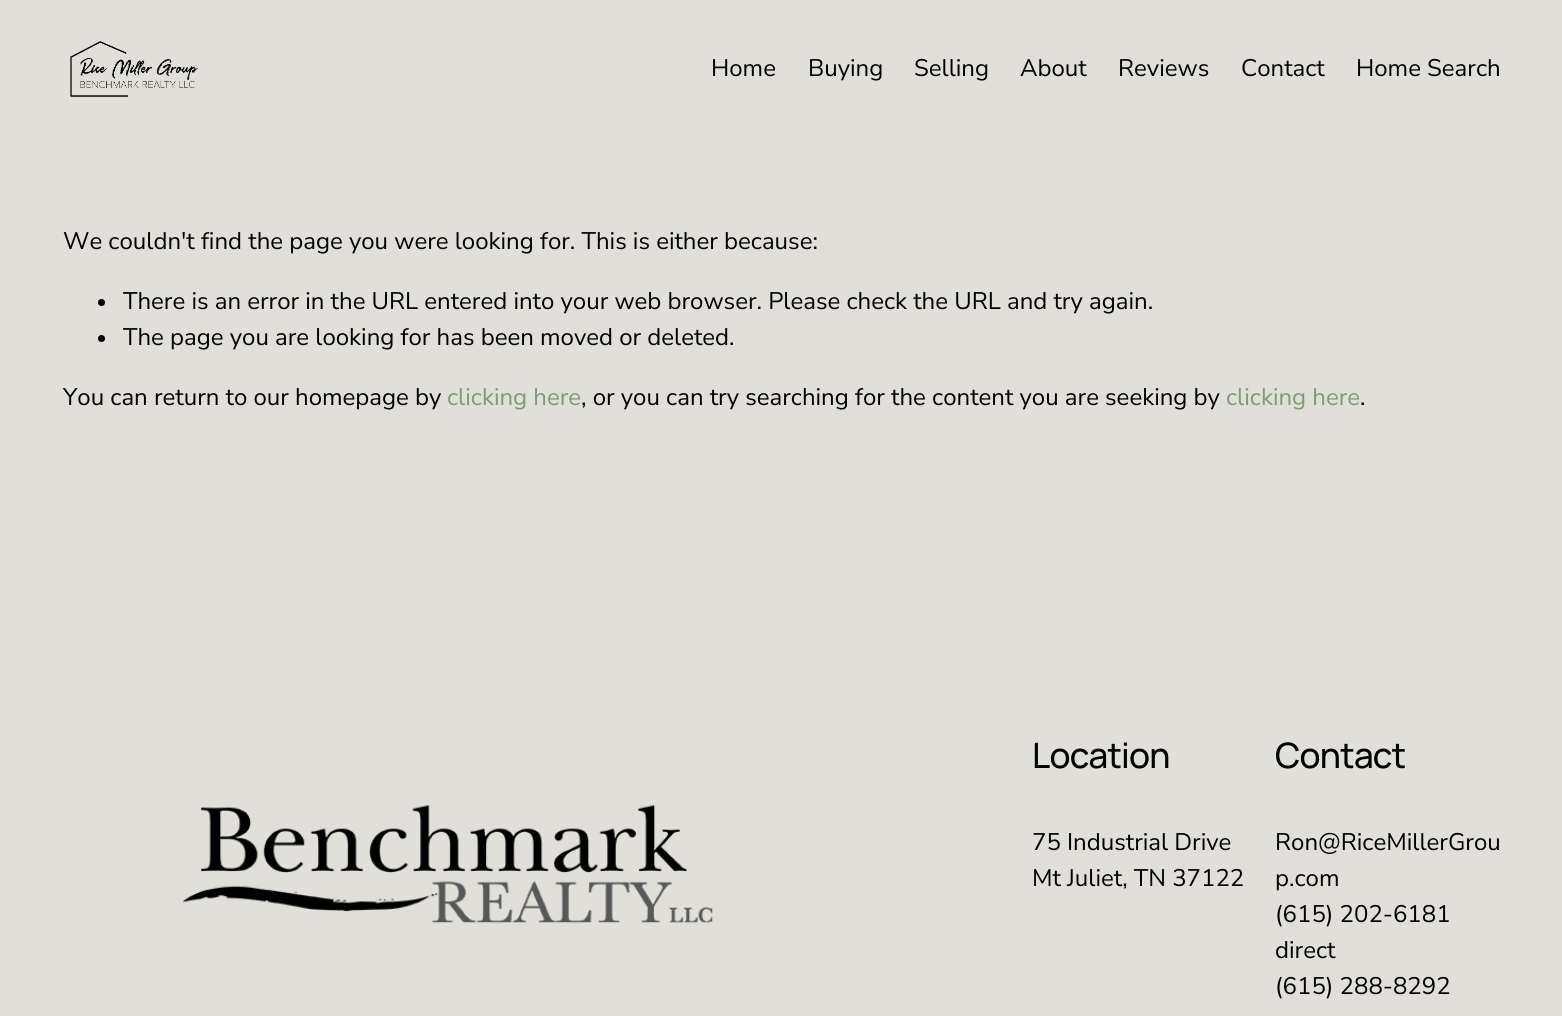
#include <cairo.h>
#include <math.h>
#include <stddef.h>

typedef struct { const char *family; double size; int italic, bold; unsigned color; } style_t;
static cairo_t *ctx;

static void ink(unsigned color) {
    cairo_set_source_rgb(ctx, (color >> 16) / 255.0, (color >> 8 & 255) / 255.0, (color & 255) / 255.0);
}

static void write(double x, double y, const char *s, const style_t *st) {
    cairo_select_font_face(ctx, st->family, st->italic ? CAIRO_FONT_SLANT_ITALIC : CAIRO_FONT_SLANT_NORMAL,
        st->bold ? CAIRO_FONT_WEIGHT_BOLD : CAIRO_FONT_WEIGHT_NORMAL);
    cairo_set_font_size(ctx, st->size);
    ink(st->color);
    cairo_move_to(ctx, x, y);
    cairo_show_text(ctx, s);
}

static void write_spaced(double x, double y, const char *s, double letter, double word) {
    cairo_move_to(ctx, x, y);
    while (*s) {
        char ch[5] = {0};
        int n = 0;
        do ch[n++] = *s++; while ((*s & 0xC0) == 0x80);
        cairo_show_text(ctx, ch);
        cairo_rel_move_to(ctx, letter + word * (*ch == ' '), 0);
    }
}

static void paste(const char *path, double x, double y, double w, double h) {
    cairo_surface_t *image = cairo_image_surface_create_from_png(path);
    cairo_save(ctx);
    cairo_set_source_surface(ctx, image, x, y);
    cairo_rectangle(ctx, x, y, w, h);
    cairo_fill(ctx);
    cairo_restore(ctx);
    cairo_surface_destroy(image);
}

static const style_t s1 = {"Nunito Sans", 24, 0, 0, 0x000000};
static const style_t s2 = {"Nunito Sans", 24, 0, 0, 0x7d9b77};

int main(void) {
    cairo_surface_t *surface = cairo_image_surface_create(CAIRO_FORMAT_RGB24, 1562, 1016);
    ctx = cairo_create(surface);
    cairo_font_options_t *options = cairo_font_options_create();
    cairo_font_options_set_hint_metrics(options, CAIRO_HINT_METRICS_OFF);
    cairo_font_options_set_hint_style(options, CAIRO_HINT_STYLE_NONE);
    cairo_set_font_options(ctx, options);
    cairo_set_miter_limit(ctx, 4);
    ink(0xe1dfd9);
    cairo_paint(ctx);
    paste("pic1.png", 70, 41, 128, 56);
    write(711, 76, "Home", &s1);
    write(808, 76, "Buying", &s1);
    write(914, 76, "Selling", &s1);
    write(1020, 76, "About", &s1);
    write(1118, 76, "Reviews", &s1);
    write(1241, 76, "Contact", &s1);
    write(1356, 76, "Home Search", &s1);
    write(63, 249, "We couldn't find the page you were looking for. This is either because:", &s1);
    cairo_new_path(ctx);
    cairo_arc(ctx, 101.5, 302.5, 3.5, 0, 2 * M_PI);
    cairo_fill(ctx);
    write(123, 309, "There is an error in the URL entered into your web browser. Please check the URL and try again.", &s1);
    cairo_new_path(ctx);
    cairo_arc(ctx, 101.5, 338.5, 3.5, 0, 2 * M_PI);
    cairo_fill(ctx);
    write(123, 345, "The page you are looking for has been moved or deleted.", &s1);
    write(63, 405, "You can return to our homepage by", &s1);
    write(447, 405, "clicking here", &s2);
    write(581, 405, ", or you can try searching for the content you are seeking by", &s1);
    write(1226, 405, "clicking here", &s2);
    write(1360, 405, ".", &s1);
    paste("pic2.png", 183, 805, 530, 118);
    cairo_select_font_face(ctx, "Manrope Medium", CAIRO_FONT_SLANT_NORMAL, CAIRO_FONT_WEIGHT_NORMAL);
    cairo_set_font_size(ctx, 35);
    write_spaced(1032, 768, "Location", -0.75, 0);
    write(1032, 850, "75 Industrial Drive", &s1);
    write(1032, 886, "Mt Juliet, TN 37122", &s1);
    cairo_select_font_face(ctx, "Manrope Medium", CAIRO_FONT_SLANT_NORMAL, CAIRO_FONT_WEIGHT_NORMAL);
    cairo_set_font_size(ctx, 35);
    write_spaced(1275, 768, "Contact", -0.75, 0);
    write(1275, 850, "Ron@RiceMillerGrou", &s1);
    write(1275, 886, "p.com", &s1);
    write(1275, 922, "(615) 202-6181", &s1);
    write(1275, 958, "direct", &s1);
    write(1275, 994, "(615) 288-8292", &s1);
    cairo_surface_write_to_png(surface, "screenshot.png");
    cairo_font_options_destroy(options);
    cairo_destroy(ctx);
    cairo_surface_destroy(surface);
    return 0;
}
